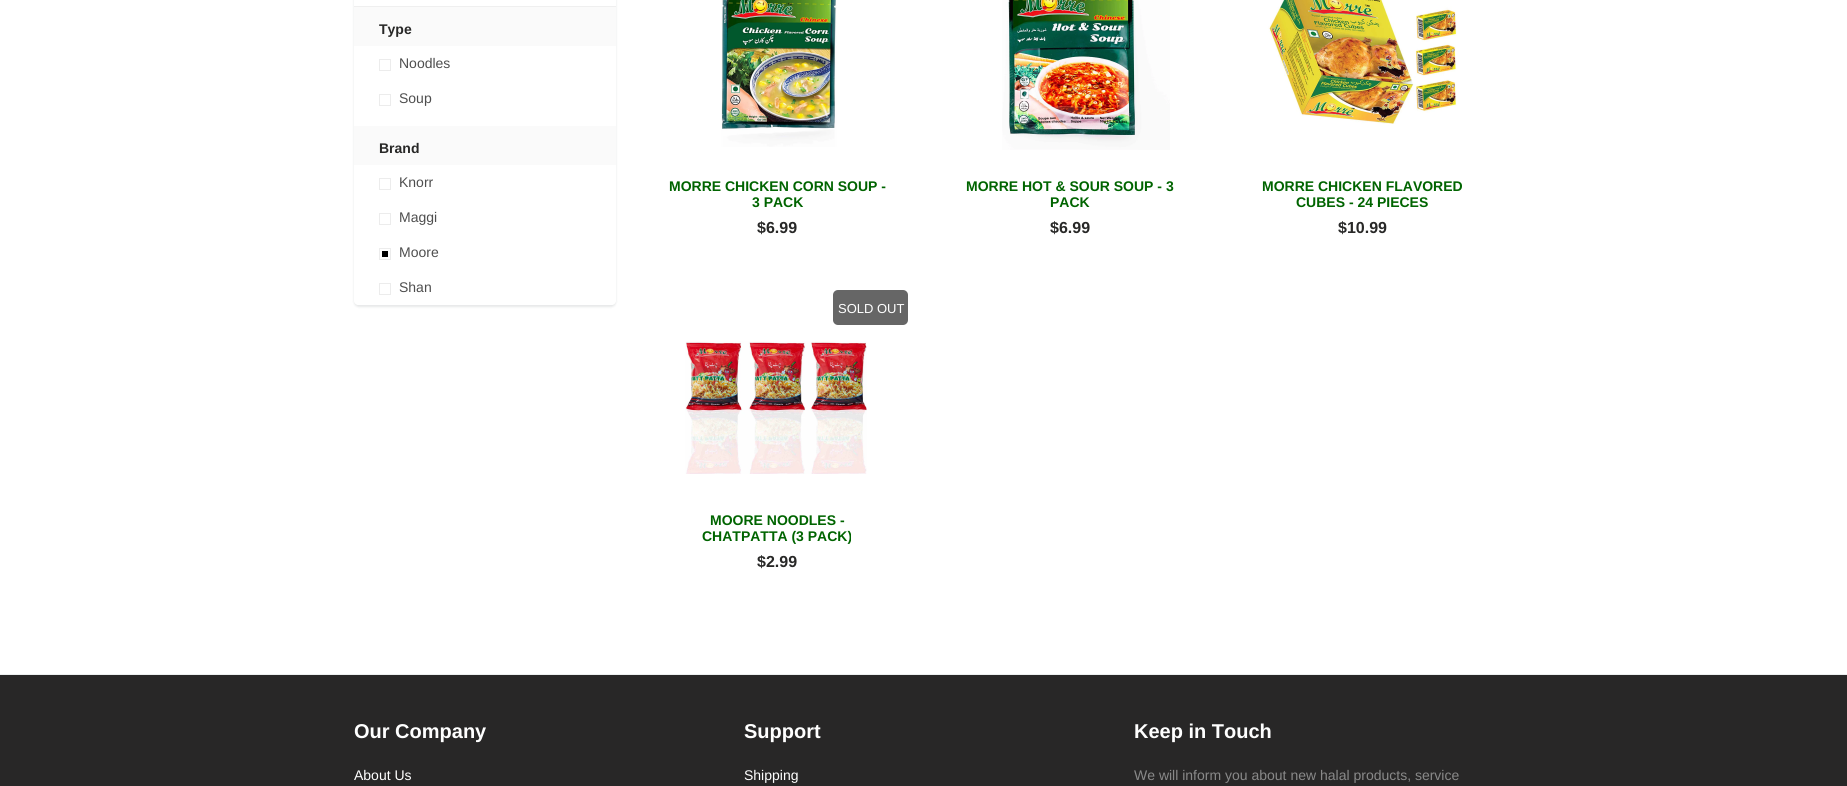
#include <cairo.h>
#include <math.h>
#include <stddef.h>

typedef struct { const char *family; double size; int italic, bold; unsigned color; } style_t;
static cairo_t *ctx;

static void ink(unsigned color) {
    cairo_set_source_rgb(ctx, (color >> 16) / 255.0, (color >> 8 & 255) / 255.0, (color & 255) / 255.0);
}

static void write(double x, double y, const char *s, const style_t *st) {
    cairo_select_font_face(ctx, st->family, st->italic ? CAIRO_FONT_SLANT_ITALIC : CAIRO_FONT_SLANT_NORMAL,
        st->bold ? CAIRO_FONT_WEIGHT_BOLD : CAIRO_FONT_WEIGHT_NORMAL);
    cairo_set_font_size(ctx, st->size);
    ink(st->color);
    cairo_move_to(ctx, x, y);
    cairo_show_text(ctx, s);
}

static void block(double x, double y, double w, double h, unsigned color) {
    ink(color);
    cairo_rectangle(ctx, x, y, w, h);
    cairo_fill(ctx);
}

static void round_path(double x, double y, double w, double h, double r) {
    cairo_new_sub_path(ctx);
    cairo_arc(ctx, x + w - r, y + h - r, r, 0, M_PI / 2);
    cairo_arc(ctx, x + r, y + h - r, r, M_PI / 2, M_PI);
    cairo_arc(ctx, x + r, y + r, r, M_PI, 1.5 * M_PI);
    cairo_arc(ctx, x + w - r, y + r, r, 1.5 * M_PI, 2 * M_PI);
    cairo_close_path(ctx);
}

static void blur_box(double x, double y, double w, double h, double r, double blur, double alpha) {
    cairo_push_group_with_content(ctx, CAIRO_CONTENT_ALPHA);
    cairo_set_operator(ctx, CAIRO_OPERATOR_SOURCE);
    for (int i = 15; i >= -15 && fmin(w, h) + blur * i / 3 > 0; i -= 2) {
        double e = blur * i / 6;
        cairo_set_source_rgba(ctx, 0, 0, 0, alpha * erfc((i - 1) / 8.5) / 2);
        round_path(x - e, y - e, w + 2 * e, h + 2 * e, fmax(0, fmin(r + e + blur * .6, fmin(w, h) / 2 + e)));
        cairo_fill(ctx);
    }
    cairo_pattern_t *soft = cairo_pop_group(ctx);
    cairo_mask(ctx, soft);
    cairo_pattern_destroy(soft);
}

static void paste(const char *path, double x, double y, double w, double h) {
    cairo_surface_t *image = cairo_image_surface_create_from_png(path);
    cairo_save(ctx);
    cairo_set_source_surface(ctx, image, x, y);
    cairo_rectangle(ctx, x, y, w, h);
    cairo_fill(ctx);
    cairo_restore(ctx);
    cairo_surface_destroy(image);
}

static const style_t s1 = {"Liberation Sans", 14, 0, 1, 0x282827};
static const style_t s2 = {"Liberation Sans", 14, 0, 0, 0x4e4e4e};
static const style_t s3 = {"Liberation Sans", 14, 0, 1, 0x006400};
static const style_t s4 = {"Liberation Sans", 16, 0, 1, 0x282827};
static const style_t s5 = {"Liberation Sans", 13, 0, 0, 0xffffff};
static const style_t s6 = {"Liberation Sans", 20, 0, 1, 0xffffff};
static const style_t s7 = {"Liberation Sans", 14, 0, 0, 0xffffff};
static const style_t s8 = {"Liberation Sans", 14, 0, 0, 0x898989};

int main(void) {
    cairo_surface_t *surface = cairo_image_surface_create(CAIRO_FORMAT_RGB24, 1847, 786);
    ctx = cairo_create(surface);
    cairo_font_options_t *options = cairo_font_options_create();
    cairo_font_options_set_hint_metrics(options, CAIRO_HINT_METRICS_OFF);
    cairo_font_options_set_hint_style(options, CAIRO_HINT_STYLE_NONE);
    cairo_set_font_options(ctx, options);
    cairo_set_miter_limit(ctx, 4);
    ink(0xffffff);
    cairo_paint(ctx);
    ink(0x0b191c);
    blur_box(354, -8, 262, 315, 5, 1, 0.1);
    ink(0xffffff);
    round_path(354, -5, 262, 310, 5);
    cairo_fill(ctx);
    block(354, 6, 262, 1, 0xefefef);
    block(354, 7, 262, 39, 0xfafafa);
    write(379, 34, "Type", &s1);
    cairo_rectangle(ctx, 379.5, 59.5, 11, 11);
    ink(0xececec);
    cairo_set_line_width(ctx, 1);
    cairo_stroke(ctx);
    write(399, 68, "Noodles", &s2);
    cairo_rectangle(ctx, 379.5, 94.5, 11, 11);
    ink(0xececec);
    cairo_stroke(ctx);
    write(399, 103, "Soup", &s2);
    block(354, 126, 262, 39, 0xfafafa);
    write(379, 153, "Brand", &s1);
    cairo_rectangle(ctx, 379.5, 178.5, 11, 11);
    ink(0xececec);
    cairo_stroke(ctx);
    write(399, 187, "Knorr", &s2);
    cairo_rectangle(ctx, 379.5, 213.5, 11, 11);
    ink(0xececec);
    cairo_stroke(ctx);
    write(399, 222, "Maggi", &s2);
    cairo_rectangle(ctx, 379.5, 248.5, 11, 11);
    ink(0xececec);
    cairo_stroke(ctx);
    write(399, 257, "Moore", &s2);
    block(382, 251, 6, 6, 0x000000);
    ink(0xffffff);
    cairo_new_path(ctx);
    cairo_move_to(ctx, 354, 270);
    cairo_line_to(ctx, 616, 270);
    cairo_line_to(ctx, 616, 300);
    cairo_curve_to(ctx, 616, 303, 614, 305, 611, 305);
    cairo_line_to(ctx, 359, 305);
    cairo_curve_to(ctx, 356, 305, 354, 303, 354, 300);
    cairo_close_path(ctx);
    cairo_fill(ctx);
    cairo_rectangle(ctx, 379.5, 283.5, 11, 11);
    ink(0xececec);
    cairo_stroke(ctx);
    write(399, 292, "Shan", &s2);
    paste("pic1.png", 721, 0, 116, 147);
    write(669, 191, "MORRE CHICKEN CORN SOUP -", &s3);
    write(752, 207, "3 PACK", &s3);
    write(757, 233, "$6.99", &s4);
    paste("pic2.png", 1002, 0, 168, 150);
    write(966, 191, "MORRE HOT & SOUR SOUP - 3", &s3);
    write(1050, 207, "PACK", &s3);
    write(1050, 233, "$6.99", &s4);
    paste("pic3.png", 1268, 0, 189, 124);
    write(1262, 191, "MORRE CHICKEN FLAVORED", &s3);
    write(1296, 207, "CUBES - 24 PIECES", &s3);
    write(1338, 233, "$10.99", &s4);
    ink(0x666666);
    round_path(833, 290, 75, 35, 5);
    cairo_fill(ctx);
    write(838, 313, "SOLD OUT", &s5);
    paste("pic4.png", 685, 341, 182, 133);
    write(710, 525, "MOORE NOODLES -", &s3);
    write(702, 541, "CHATPATTA (3 PACK)", &s3);
    write(757, 567, "$2.99", &s4);
    block(0, 675, 1847, 111, 0x282727);
    block(0, 674, 1847, 1, 0xecefef);
    write(354, 738, "Our Company", &s6);
    write(354, 780, "About Us", &s7);
    write(744, 738, "Support", &s6);
    write(744, 780, "Shipping", &s7);
    write(1134, 738, "Keep in Touch", &s6);
    write(1134, 780, "We will inform you about new halal products, service", &s8);
    cairo_surface_write_to_png(surface, "screenshot.png");
    cairo_font_options_destroy(options);
    cairo_destroy(ctx);
    cairo_surface_destroy(surface);
    return 0;
}
